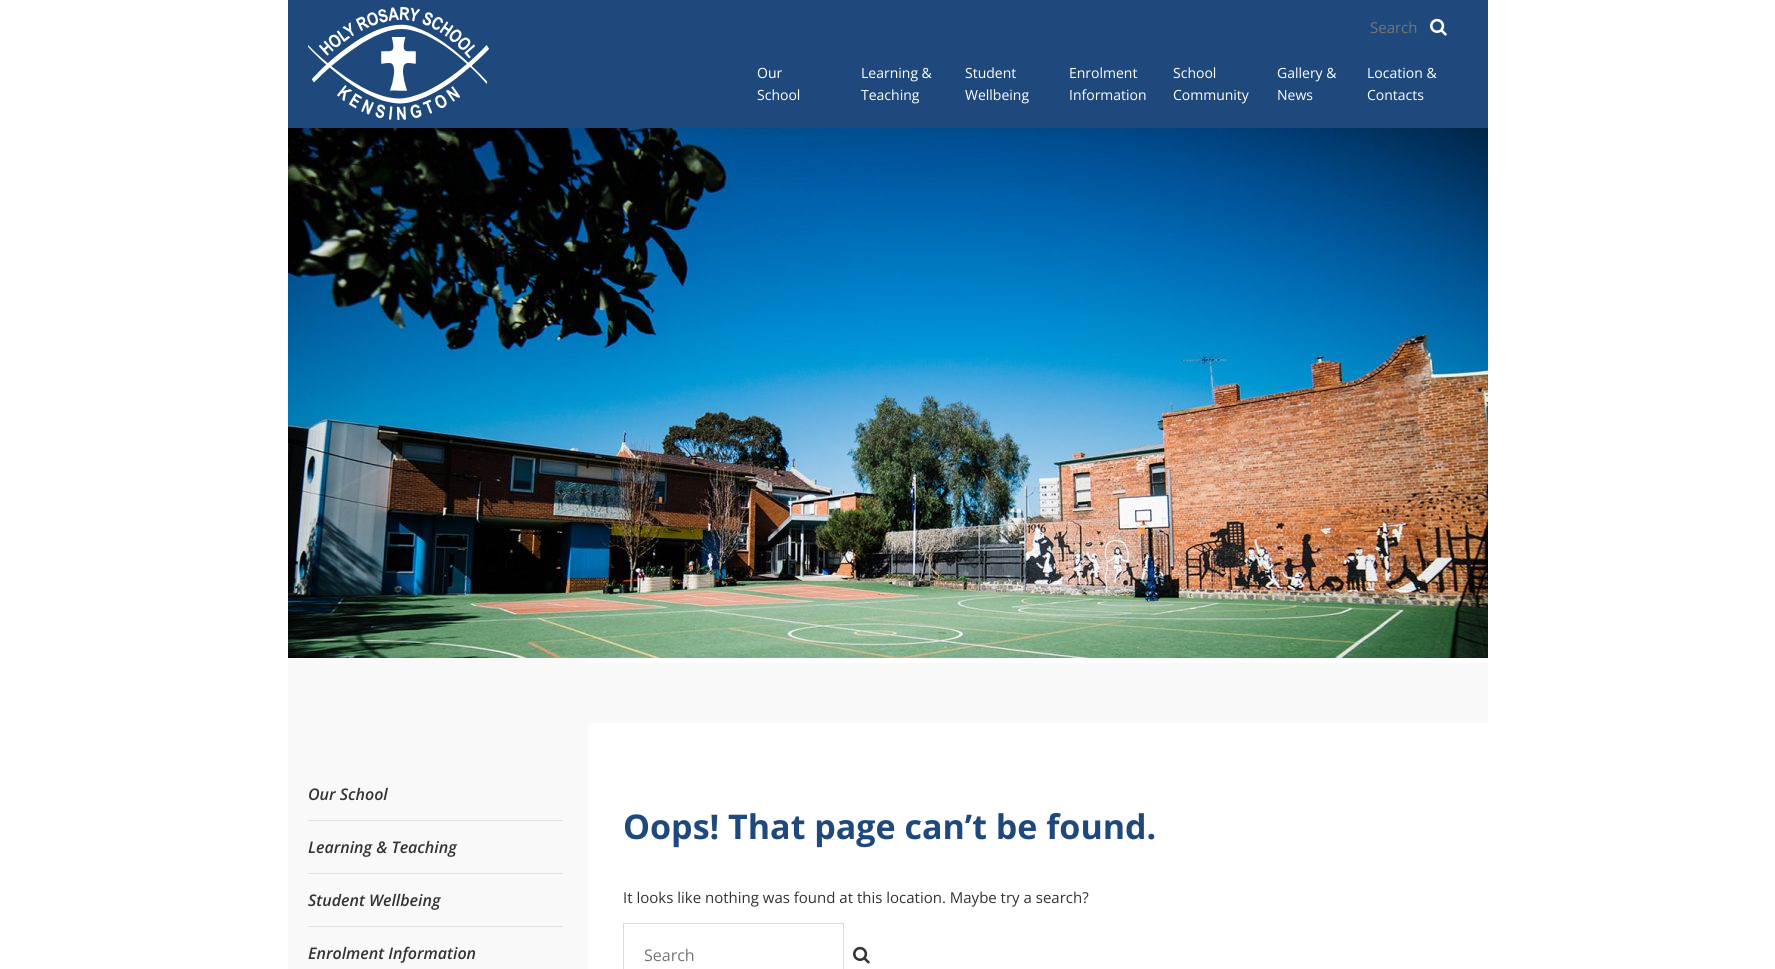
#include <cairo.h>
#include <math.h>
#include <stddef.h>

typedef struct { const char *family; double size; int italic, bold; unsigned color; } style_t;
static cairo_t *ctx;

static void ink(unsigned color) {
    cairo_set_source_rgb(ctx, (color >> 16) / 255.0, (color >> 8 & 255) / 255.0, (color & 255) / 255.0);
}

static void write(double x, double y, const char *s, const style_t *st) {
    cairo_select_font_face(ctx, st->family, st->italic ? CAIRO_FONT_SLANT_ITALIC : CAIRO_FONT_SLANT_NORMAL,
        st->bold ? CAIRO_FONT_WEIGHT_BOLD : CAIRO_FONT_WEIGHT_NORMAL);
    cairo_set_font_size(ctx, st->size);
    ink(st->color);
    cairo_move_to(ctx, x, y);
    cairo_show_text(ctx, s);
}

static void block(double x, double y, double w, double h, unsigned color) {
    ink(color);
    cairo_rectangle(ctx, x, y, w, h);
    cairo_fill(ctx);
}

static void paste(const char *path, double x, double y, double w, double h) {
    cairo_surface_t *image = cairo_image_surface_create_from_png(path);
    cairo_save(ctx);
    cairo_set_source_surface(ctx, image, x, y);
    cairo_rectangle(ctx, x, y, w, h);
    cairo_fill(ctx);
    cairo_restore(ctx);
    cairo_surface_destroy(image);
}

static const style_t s1 = {"Open Sans", 15, 0, 0, 0x757575};
static const style_t s2 = {"Open Sans", 14, 0, 0, 0xffffff};
static const style_t s3 = {"Open Sans SemiBold", 16, 1, 0, 0x333333};
static const style_t s4 = {"Open Sans", 34, 0, 1, 0x1f497c};
static const style_t s5 = {"Open Sans", 15, 0, 0, 0x333333};
static const style_t s6 = {"Open Sans", 16, 0, 0, 0x757575};

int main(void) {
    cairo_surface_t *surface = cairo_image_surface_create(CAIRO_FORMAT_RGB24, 1775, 969);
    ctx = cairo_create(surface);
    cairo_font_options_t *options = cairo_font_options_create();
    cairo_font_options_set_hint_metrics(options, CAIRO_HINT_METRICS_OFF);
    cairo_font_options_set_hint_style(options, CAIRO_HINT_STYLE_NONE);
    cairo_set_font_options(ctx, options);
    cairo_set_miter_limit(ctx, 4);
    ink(0xffffff);
    cairo_paint(ctx);
    block(288, 0, 1200, 128, 0x1f497c);
    write(1370, 33, "Search", &s1);
    paste("pic1.png", 1430, 18, 17, 18);
    paste("pic2.png", 308, 7, 181, 113);
    write(757, 78, "Our", &s2);
    write(757, 100, "School", &s2);
    write(861, 78, "Learning &", &s2);
    write(861, 100, "Teaching", &s2);
    write(965, 78, "Student", &s2);
    write(965, 100, "Wellbeing", &s2);
    write(1069, 78, "Enrolment", &s2);
    write(1069, 100, "Information", &s2);
    write(1173, 78, "School", &s2);
    write(1173, 100, "Community", &s2);
    write(1277, 78, "Gallery &", &s2);
    write(1277, 100, "News", &s2);
    write(1367, 78, "Location &", &s2);
    write(1367, 100, "Contacts", &s2);
    block(288, 658, 300, 311, 0xf9f9f9);
    paste("pic3.png", 288, 128, 1200, 530);
    block(588, 663, 900, 60, 0xf9f9f9);
    block(308, 820, 255, 1, 0xe0e0e0);
    write(308, 800, "Our School", &s3);
    block(308, 873, 255, 1, 0xe0e0e0);
    write(308, 853, "Learning & Teaching", &s3);
    block(308, 926, 255, 1, 0xe0e0e0);
    write(308, 906, "Student Wellbeing", &s3);
    write(308, 959, "Enrolment Information", &s3);
    write(623, 839, "Oops! That page can’t be found.", &s4);
    write(623, 903, "It looks like nothing was found at this location. Maybe try a search?", &s5);
    cairo_rectangle(ctx, 623.5, 923.5, 220, 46);
    ink(0xdadada);
    cairo_set_line_width(ctx, 1);
    cairo_stroke(ctx);
    write(644, 961, "Search", &s6);
    paste("pic4.png", 853, 946, 17, 18);
    cairo_surface_write_to_png(surface, "screenshot.png");
    cairo_font_options_destroy(options);
    cairo_destroy(ctx);
    cairo_surface_destroy(surface);
    return 0;
}
